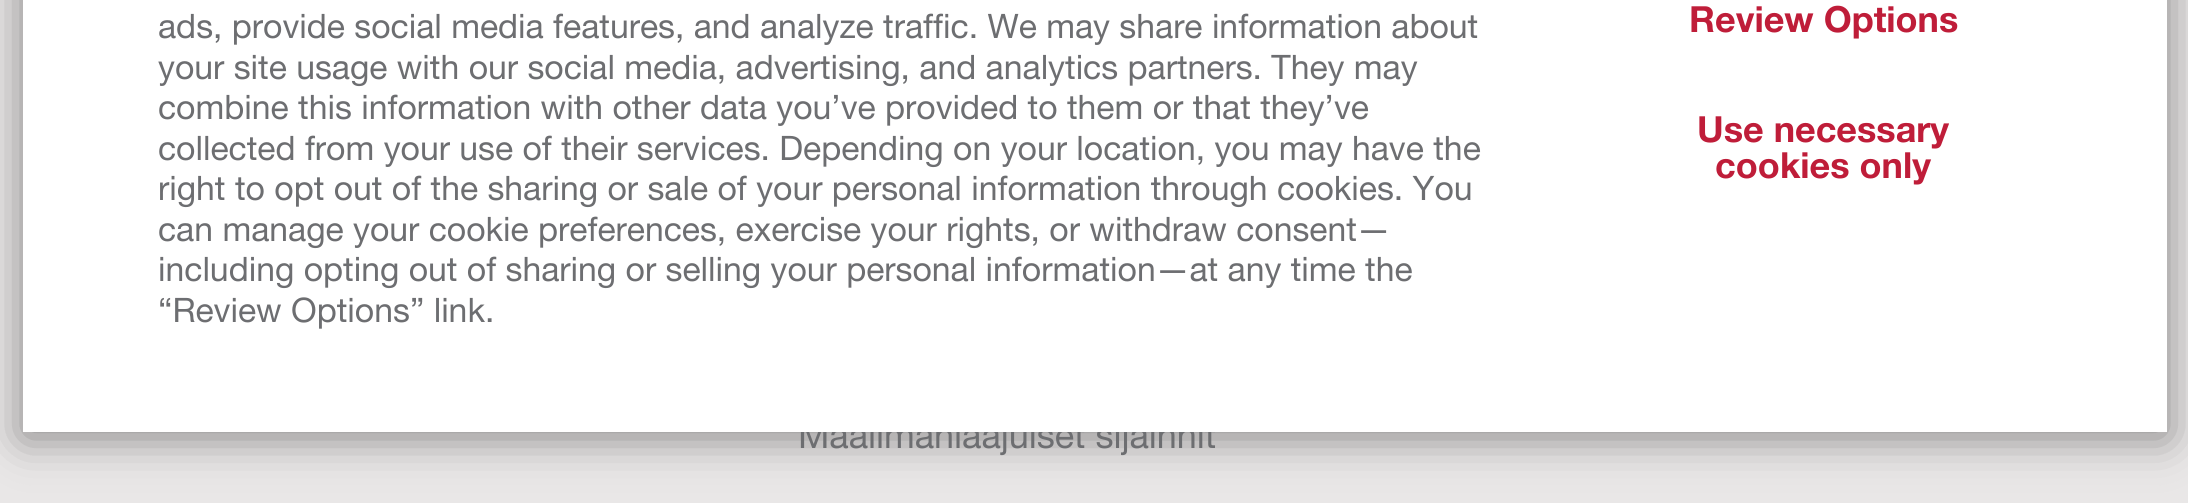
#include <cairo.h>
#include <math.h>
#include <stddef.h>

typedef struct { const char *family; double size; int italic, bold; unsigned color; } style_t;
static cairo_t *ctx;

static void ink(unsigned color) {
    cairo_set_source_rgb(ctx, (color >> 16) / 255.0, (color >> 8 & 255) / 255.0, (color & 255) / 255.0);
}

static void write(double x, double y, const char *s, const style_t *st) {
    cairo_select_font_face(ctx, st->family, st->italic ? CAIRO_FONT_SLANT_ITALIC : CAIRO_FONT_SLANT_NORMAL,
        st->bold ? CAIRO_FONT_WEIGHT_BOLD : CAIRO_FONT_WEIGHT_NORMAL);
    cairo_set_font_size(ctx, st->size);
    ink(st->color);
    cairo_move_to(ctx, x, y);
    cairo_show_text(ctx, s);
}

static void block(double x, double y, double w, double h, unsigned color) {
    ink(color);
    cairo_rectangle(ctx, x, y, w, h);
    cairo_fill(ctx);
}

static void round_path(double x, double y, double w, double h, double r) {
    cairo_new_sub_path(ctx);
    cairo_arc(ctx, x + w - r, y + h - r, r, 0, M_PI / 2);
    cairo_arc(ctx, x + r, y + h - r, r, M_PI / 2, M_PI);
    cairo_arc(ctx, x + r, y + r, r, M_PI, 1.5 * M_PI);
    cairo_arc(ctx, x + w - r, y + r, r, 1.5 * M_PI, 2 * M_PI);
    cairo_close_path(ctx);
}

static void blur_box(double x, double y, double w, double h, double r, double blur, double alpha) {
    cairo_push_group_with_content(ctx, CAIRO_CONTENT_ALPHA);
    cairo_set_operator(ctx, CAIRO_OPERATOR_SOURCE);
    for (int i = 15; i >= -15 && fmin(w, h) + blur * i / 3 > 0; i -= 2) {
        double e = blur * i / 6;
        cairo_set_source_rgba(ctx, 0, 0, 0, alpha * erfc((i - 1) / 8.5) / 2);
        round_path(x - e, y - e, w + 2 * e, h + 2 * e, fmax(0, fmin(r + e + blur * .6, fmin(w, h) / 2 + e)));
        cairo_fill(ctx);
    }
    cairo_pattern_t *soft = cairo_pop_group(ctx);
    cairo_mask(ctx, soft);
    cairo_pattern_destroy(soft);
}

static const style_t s1 = {"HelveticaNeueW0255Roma", 36, 0, 0, 0x6d6e71};
static const style_t s2 = {"HelveticaNeueW0255Roma", 33.75, 0, 0, 0x6d6e71};
static const style_t s3 = {"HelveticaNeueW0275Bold", 36, 0, 1, 0xbf1d39};

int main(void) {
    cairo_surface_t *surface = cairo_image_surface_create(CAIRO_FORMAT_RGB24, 2188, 503);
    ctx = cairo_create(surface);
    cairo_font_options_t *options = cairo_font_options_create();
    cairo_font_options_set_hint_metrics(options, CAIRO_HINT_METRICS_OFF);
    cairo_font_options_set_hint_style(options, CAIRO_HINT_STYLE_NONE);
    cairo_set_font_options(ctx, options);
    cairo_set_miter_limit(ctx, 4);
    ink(0xe9e7e7);
    cairo_paint(ctx);
    ink(0x212121);
    blur_box(23, -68, 2144, 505, 0, 22.5, 0.5);
    write(798, 448, "Maailmanlaajuiset sijainnit", &s1);
    block(23, 0, 2144, 432, 0xffffff);
    write(158, 38, "ads, provide social media features, and analyze traffic. We may share information about", &s2);
    write(158, 79, "your site usage with our social media, advertising, and analytics partners. They may", &s2);
    write(158, 119, "combine this information with other data you’ve provided to them or that they’ve", &s2);
    write(158, 160, "collected from your use of their services. Depending on your location, you may have the", &s2);
    write(158, 200, "right to opt out of the sharing or sale of your personal information through cookies. You", &s2);
    write(158, 241, "can manage your cookie preferences, exercise your rights, or withdraw consent—", &s2);
    write(158, 281, "including opting out of sharing or selling your personal information—at any time the", &s2);
    write(158, 322, "“Review Options” link.", &s2);
    write(1689, 32, "Review Options", &s3);
    write(1697, 142, "Use necessary", &s3);
    write(1715, 178, "cookies only", &s3);
    cairo_surface_write_to_png(surface, "screenshot.png");
    cairo_font_options_destroy(options);
    cairo_destroy(ctx);
    cairo_surface_destroy(surface);
    return 0;
}
